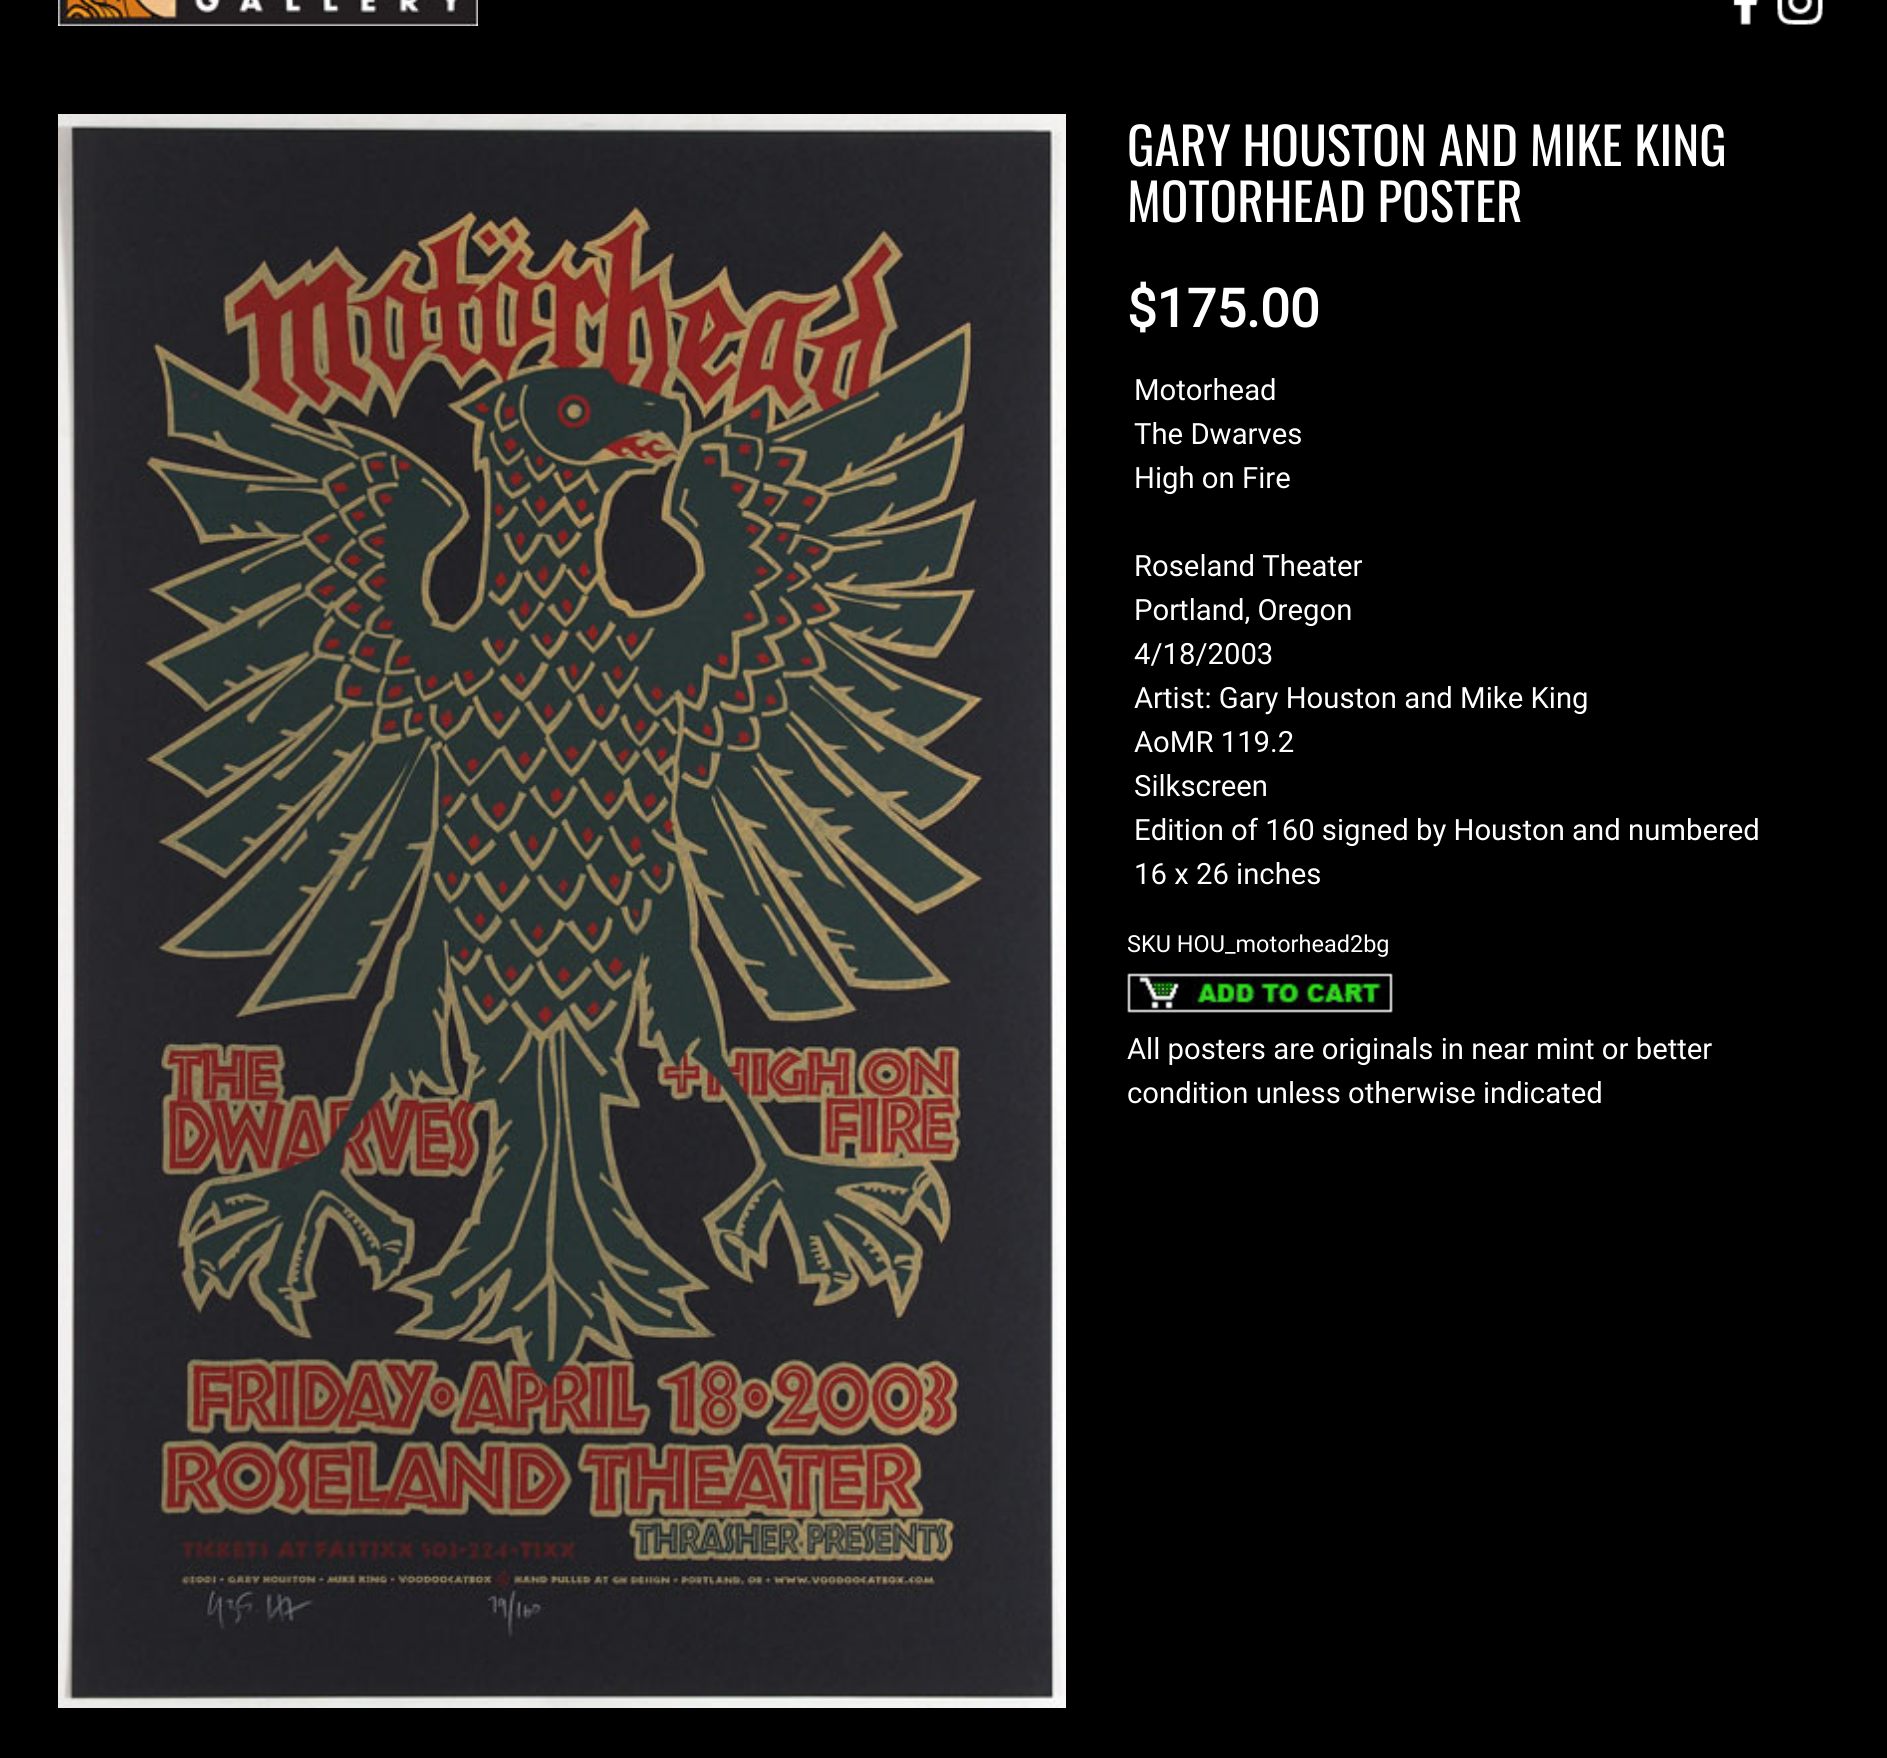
#include <cairo.h>
#include <math.h>
#include <stddef.h>

typedef struct { const char *family; double size; int italic, bold; unsigned color; } style_t;
static cairo_t *ctx;

static void ink(unsigned color) {
    cairo_set_source_rgb(ctx, (color >> 16) / 255.0, (color >> 8 & 255) / 255.0, (color & 255) / 255.0);
}

static void write(double x, double y, const char *s, const style_t *st) {
    cairo_select_font_face(ctx, st->family, st->italic ? CAIRO_FONT_SLANT_ITALIC : CAIRO_FONT_SLANT_NORMAL,
        st->bold ? CAIRO_FONT_WEIGHT_BOLD : CAIRO_FONT_WEIGHT_NORMAL);
    cairo_set_font_size(ctx, st->size);
    ink(st->color);
    cairo_move_to(ctx, x, y);
    cairo_show_text(ctx, s);
}

static void paste(const char *path, double x, double y, double w, double h) {
    cairo_surface_t *image = cairo_image_surface_create_from_png(path);
    cairo_save(ctx);
    cairo_set_source_surface(ctx, image, x, y);
    cairo_rectangle(ctx, x, y, w, h);
    cairo_fill(ctx);
    cairo_restore(ctx);
    cairo_surface_destroy(image);
}

static const style_t s1 = {"Oswald", 51.25, 0, 0, 0xffffff};
static const style_t s2 = {"Roboto", 53, 0, 1, 0xffffff};
static const style_t s3 = {"Roboto", 29.3, 0, 0, 0xffffff};
static const style_t s4 = {"Roboto", 23.5, 0, 0, 0xffffff};

int main(void) {
    cairo_surface_t *surface = cairo_image_surface_create(CAIRO_FORMAT_RGB24, 1887, 1758);
    ctx = cairo_create(surface);
    cairo_font_options_t *options = cairo_font_options_create();
    cairo_font_options_set_hint_metrics(options, CAIRO_HINT_METRICS_OFF);
    cairo_font_options_set_hint_style(options, CAIRO_HINT_STYLE_NONE);
    cairo_set_font_options(ctx, options);
    cairo_set_miter_limit(ctx, 4);
    ink(0x000000);
    cairo_paint(ctx);
    paste("pic1.png", 58, 0, 420, 26);
    paste("pic2.png", 1733, 0, 26, 25);
    paste("pic3.png", 1777, 0, 46, 25);
    paste("pic4.png", 58, 114, 1008, 1594);
    write(1127, 166, "GARY HOUSTON AND MIKE KING", &s1);
    write(1127, 222, "MOTORHEAD POSTER", &s1);
    write(1127, 327, "$175.00", &s2);
    write(1134, 400, "Motorhead", &s3);
    write(1134, 444, "The Dwarves", &s3);
    write(1134, 488, "High on Fire", &s3);
    write(1134, 576, "Roseland Theater", &s3);
    write(1134, 620, "Portland, Oregon", &s3);
    write(1134, 664, "4/18/2003", &s3);
    write(1134, 708, "Artist: Gary Houston and Mike King", &s3);
    write(1134, 752, "AoMR 119.2", &s3);
    write(1134, 796, "Silkscreen", &s3);
    write(1134, 840, "Edition of 160 signed by Houston and numbered", &s3);
    write(1134, 884, "16 x 26 inches", &s3);
    write(1127, 952, "SKU HOU_motorhead2bg", &s4);
    paste("pic5.png", 1127, 973, 266, 40);
    write(1127, 1059, "All posters are originals in near mint or better", &s3);
    write(1127, 1103, "condition unless otherwise indicated", &s3);
    cairo_surface_write_to_png(surface, "screenshot.png");
    cairo_font_options_destroy(options);
    cairo_destroy(ctx);
    cairo_surface_destroy(surface);
    return 0;
}
